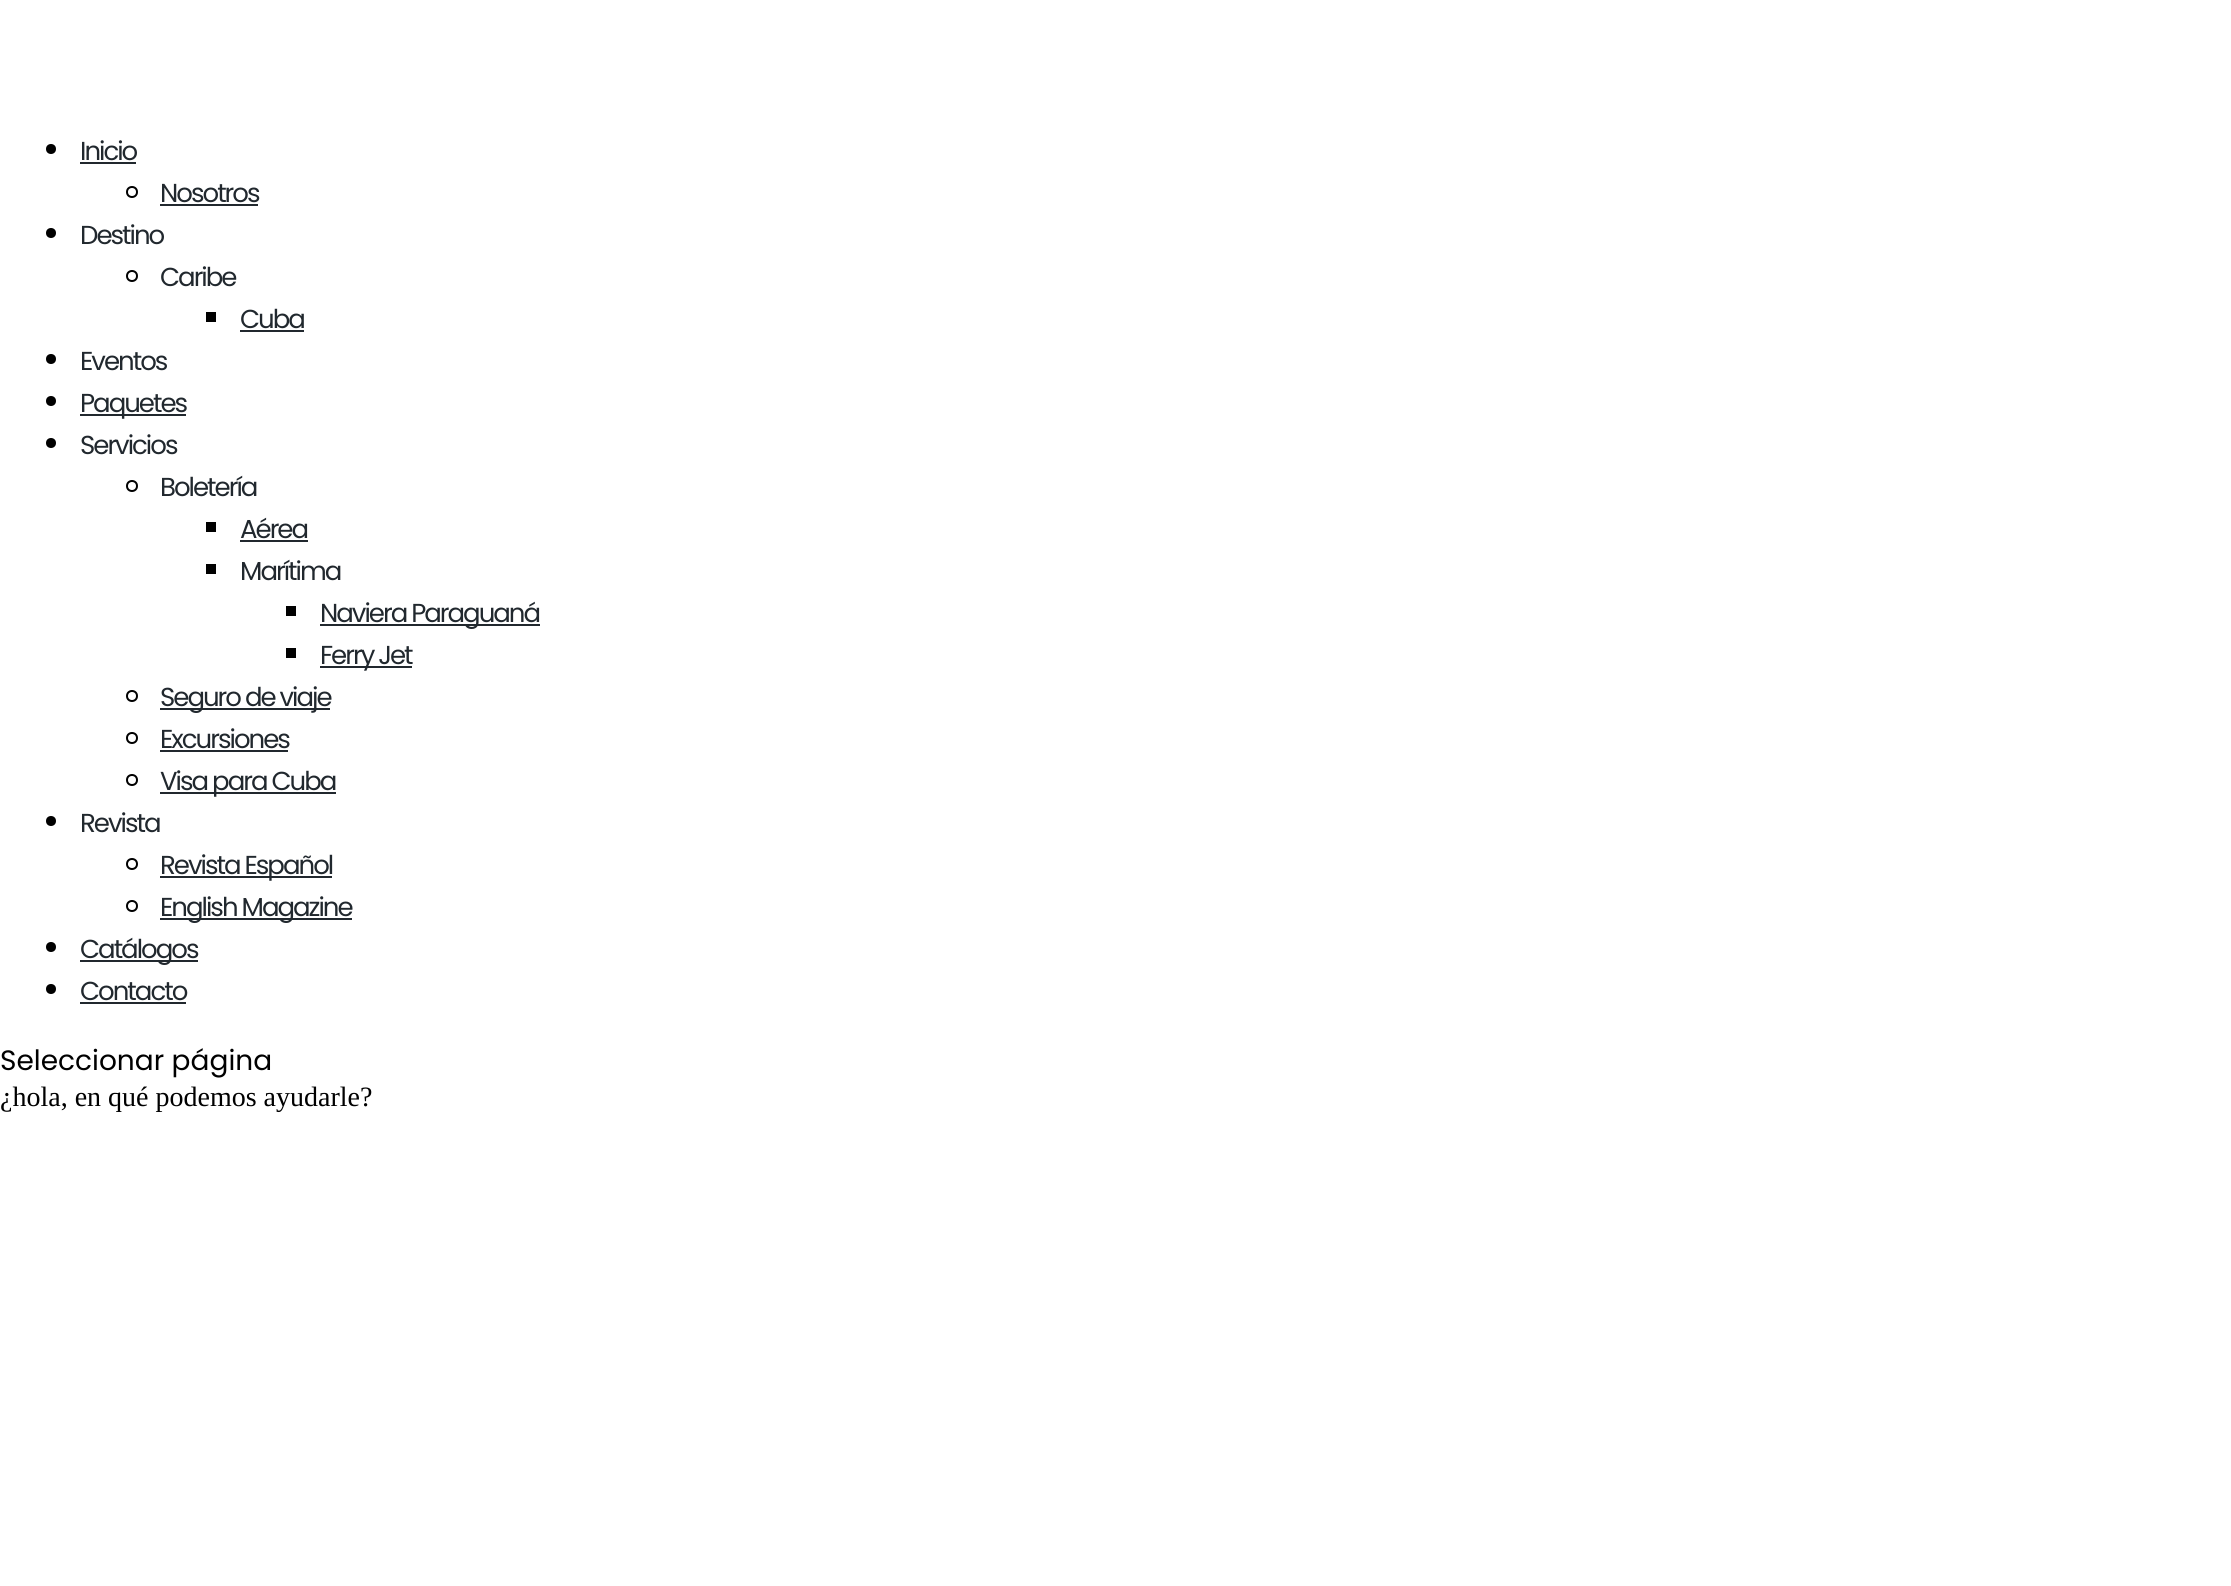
#include <cairo.h>
#include <math.h>
#include <stddef.h>

typedef struct { const char *family; double size; int italic, bold; unsigned color; } style_t;
static cairo_t *ctx;

static void ink(unsigned color) {
    cairo_set_source_rgb(ctx, (color >> 16) / 255.0, (color >> 8 & 255) / 255.0, (color & 255) / 255.0);
}

static void write(double x, double y, const char *s, const style_t *st) {
    cairo_select_font_face(ctx, st->family, st->italic ? CAIRO_FONT_SLANT_ITALIC : CAIRO_FONT_SLANT_NORMAL,
        st->bold ? CAIRO_FONT_WEIGHT_BOLD : CAIRO_FONT_WEIGHT_NORMAL);
    cairo_set_font_size(ctx, st->size);
    ink(st->color);
    cairo_move_to(ctx, x, y);
    cairo_show_text(ctx, s);
}

static void write_spaced(double x, double y, const char *s, double letter, double word) {
    cairo_move_to(ctx, x, y);
    while (*s) {
        char ch[5] = {0};
        int n = 0;
        do ch[n++] = *s++; while ((*s & 0xC0) == 0x80);
        cairo_show_text(ctx, ch);
        cairo_rel_move_to(ctx, letter + word * (*ch == ' '), 0);
    }
}

static void block(double x, double y, double w, double h, unsigned color) {
    ink(color);
    cairo_rectangle(ctx, x, y, w, h);
    cairo_fill(ctx);
}

static const style_t s1 = {"Poppins", 28, 0, 0, 0x000000};
static const style_t s2 = {"Liberation Serif", 28, 0, 0, 0x000000};

int main(void) {
    cairo_surface_t *surface = cairo_image_surface_create(CAIRO_FORMAT_RGB24, 2231, 1586);
    ctx = cairo_create(surface);
    cairo_font_options_t *options = cairo_font_options_create();
    cairo_font_options_set_hint_metrics(options, CAIRO_HINT_METRICS_OFF);
    cairo_font_options_set_hint_style(options, CAIRO_HINT_STYLE_NONE);
    cairo_set_font_options(ctx, options);
    cairo_set_miter_limit(ctx, 4);
    ink(0xffffff);
    cairo_paint(ctx);
    ink(0x000000);
    cairo_arc(ctx, 51, 149, 5, 0, 2 * M_PI);
    cairo_fill(ctx);
    cairo_select_font_face(ctx, "Poppins", CAIRO_FONT_SLANT_NORMAL, CAIRO_FONT_WEIGHT_NORMAL);
    cairo_set_font_size(ctx, 26);
    ink(0x21282e);
    write_spaced(80, 160, "Inicio", -2, 0);
    block(80, 162, 56, 2, 0x21282e);
    cairo_new_path(ctx);
    cairo_arc(ctx, 132, 192, 5, 0, 2 * M_PI);
    ink(0x000000);
    cairo_stroke(ctx);
    ink(0x21282e);
    write_spaced(160, 202, "Nosotros", -2, 0);
    block(160, 204, 98, 2, 0x21282e);
    ink(0x000000);
    cairo_new_path(ctx);
    cairo_arc(ctx, 51, 233, 5, 0, 2 * M_PI);
    cairo_fill(ctx);
    ink(0x21282e);
    write_spaced(80, 244, "Destino", -2, 0);
    cairo_new_path(ctx);
    cairo_arc(ctx, 132, 276, 5, 0, 2 * M_PI);
    ink(0x000000);
    cairo_stroke(ctx);
    ink(0x21282e);
    write_spaced(160, 286, "Caribe", -2, 0);
    block(206, 312, 10, 10, 0x000000);
    ink(0x21282e);
    write_spaced(240, 328, "Cuba", -2, 0);
    block(240, 330, 64, 2, 0x21282e);
    ink(0x000000);
    cairo_new_path(ctx);
    cairo_arc(ctx, 51, 359, 5, 0, 2 * M_PI);
    cairo_fill(ctx);
    ink(0x21282e);
    write_spaced(80, 370, "Eventos", -2, 0);
    ink(0x000000);
    cairo_new_path(ctx);
    cairo_arc(ctx, 51, 401, 5, 0, 2 * M_PI);
    cairo_fill(ctx);
    block(80, 414, 106, 2, 0x21282e);
    write_spaced(80, 412, "Paquetes", -2, 0);
    ink(0x000000);
    cairo_new_path(ctx);
    cairo_arc(ctx, 51, 443, 5, 0, 2 * M_PI);
    cairo_fill(ctx);
    ink(0x21282e);
    write_spaced(80, 454, "Servicios", -2, 0);
    cairo_new_path(ctx);
    cairo_arc(ctx, 132, 486, 5, 0, 2 * M_PI);
    ink(0x000000);
    cairo_stroke(ctx);
    ink(0x21282e);
    write_spaced(160, 496, "Boletería", -2, 0);
    block(206, 522, 10, 10, 0x000000);
    ink(0x21282e);
    write_spaced(240, 538, "Aérea", -2, 0);
    block(240, 540, 68, 2, 0x21282e);
    block(206, 564, 10, 10, 0x000000);
    ink(0x21282e);
    write_spaced(240, 580, "Marítima", -2, 0);
    block(286, 606, 10, 10, 0x000000);
    block(320, 624, 220, 2, 0x21282e);
    write_spaced(320, 622, "Naviera Paraguaná", -2, 0);
    block(286, 648, 10, 10, 0x000000);
    block(320, 666, 92, 2, 0x21282e);
    write_spaced(320, 664, "Ferry Jet", -2, 0);
    cairo_new_path(ctx);
    cairo_arc(ctx, 132, 696, 5, 0, 2 * M_PI);
    ink(0x000000);
    cairo_stroke(ctx);
    block(160, 708, 170, 2, 0x21282e);
    write_spaced(160, 706, "Seguro de viaje", -2, 0);
    cairo_new_path(ctx);
    cairo_arc(ctx, 132, 738, 5, 0, 2 * M_PI);
    ink(0x000000);
    cairo_stroke(ctx);
    ink(0x21282e);
    write_spaced(160, 748, "Excursiones", -2, 0);
    block(160, 750, 128, 2, 0x21282e);
    cairo_new_path(ctx);
    cairo_arc(ctx, 132, 780, 5, 0, 2 * M_PI);
    ink(0x000000);
    cairo_stroke(ctx);
    block(160, 792, 176, 2, 0x21282e);
    write_spaced(160, 790, "Visa para Cuba", -2, 0);
    ink(0x000000);
    cairo_new_path(ctx);
    cairo_arc(ctx, 51, 821, 5, 0, 2 * M_PI);
    cairo_fill(ctx);
    ink(0x21282e);
    write_spaced(80, 832, "Revista", -2, 0);
    cairo_new_path(ctx);
    cairo_arc(ctx, 132, 864, 5, 0, 2 * M_PI);
    ink(0x000000);
    cairo_stroke(ctx);
    block(160, 876, 172, 2, 0x21282e);
    write_spaced(160, 874, "Revista Español", -2, 0);
    cairo_new_path(ctx);
    cairo_arc(ctx, 132, 906, 5, 0, 2 * M_PI);
    ink(0x000000);
    cairo_stroke(ctx);
    block(160, 918, 192, 2, 0x21282e);
    write_spaced(160, 916, "English Magazine", -2, 0);
    ink(0x000000);
    cairo_new_path(ctx);
    cairo_arc(ctx, 51, 947, 5, 0, 2 * M_PI);
    cairo_fill(ctx);
    block(80, 960, 118, 2, 0x21282e);
    write_spaced(80, 958, "Catálogos", -2, 0);
    ink(0x000000);
    cairo_new_path(ctx);
    cairo_arc(ctx, 51, 989, 5, 0, 2 * M_PI);
    cairo_fill(ctx);
    ink(0x21282e);
    write_spaced(80, 1000, "Contacto", -2, 0);
    block(80, 1002, 106, 2, 0x21282e);
    write(0, 1070, "Seleccionar página", &s1);
    write(0, 1106, "¿hola, en qué podemos ayudarle?", &s2);
    cairo_surface_write_to_png(surface, "screenshot.png");
    cairo_font_options_destroy(options);
    cairo_destroy(ctx);
    cairo_surface_destroy(surface);
    return 0;
}
